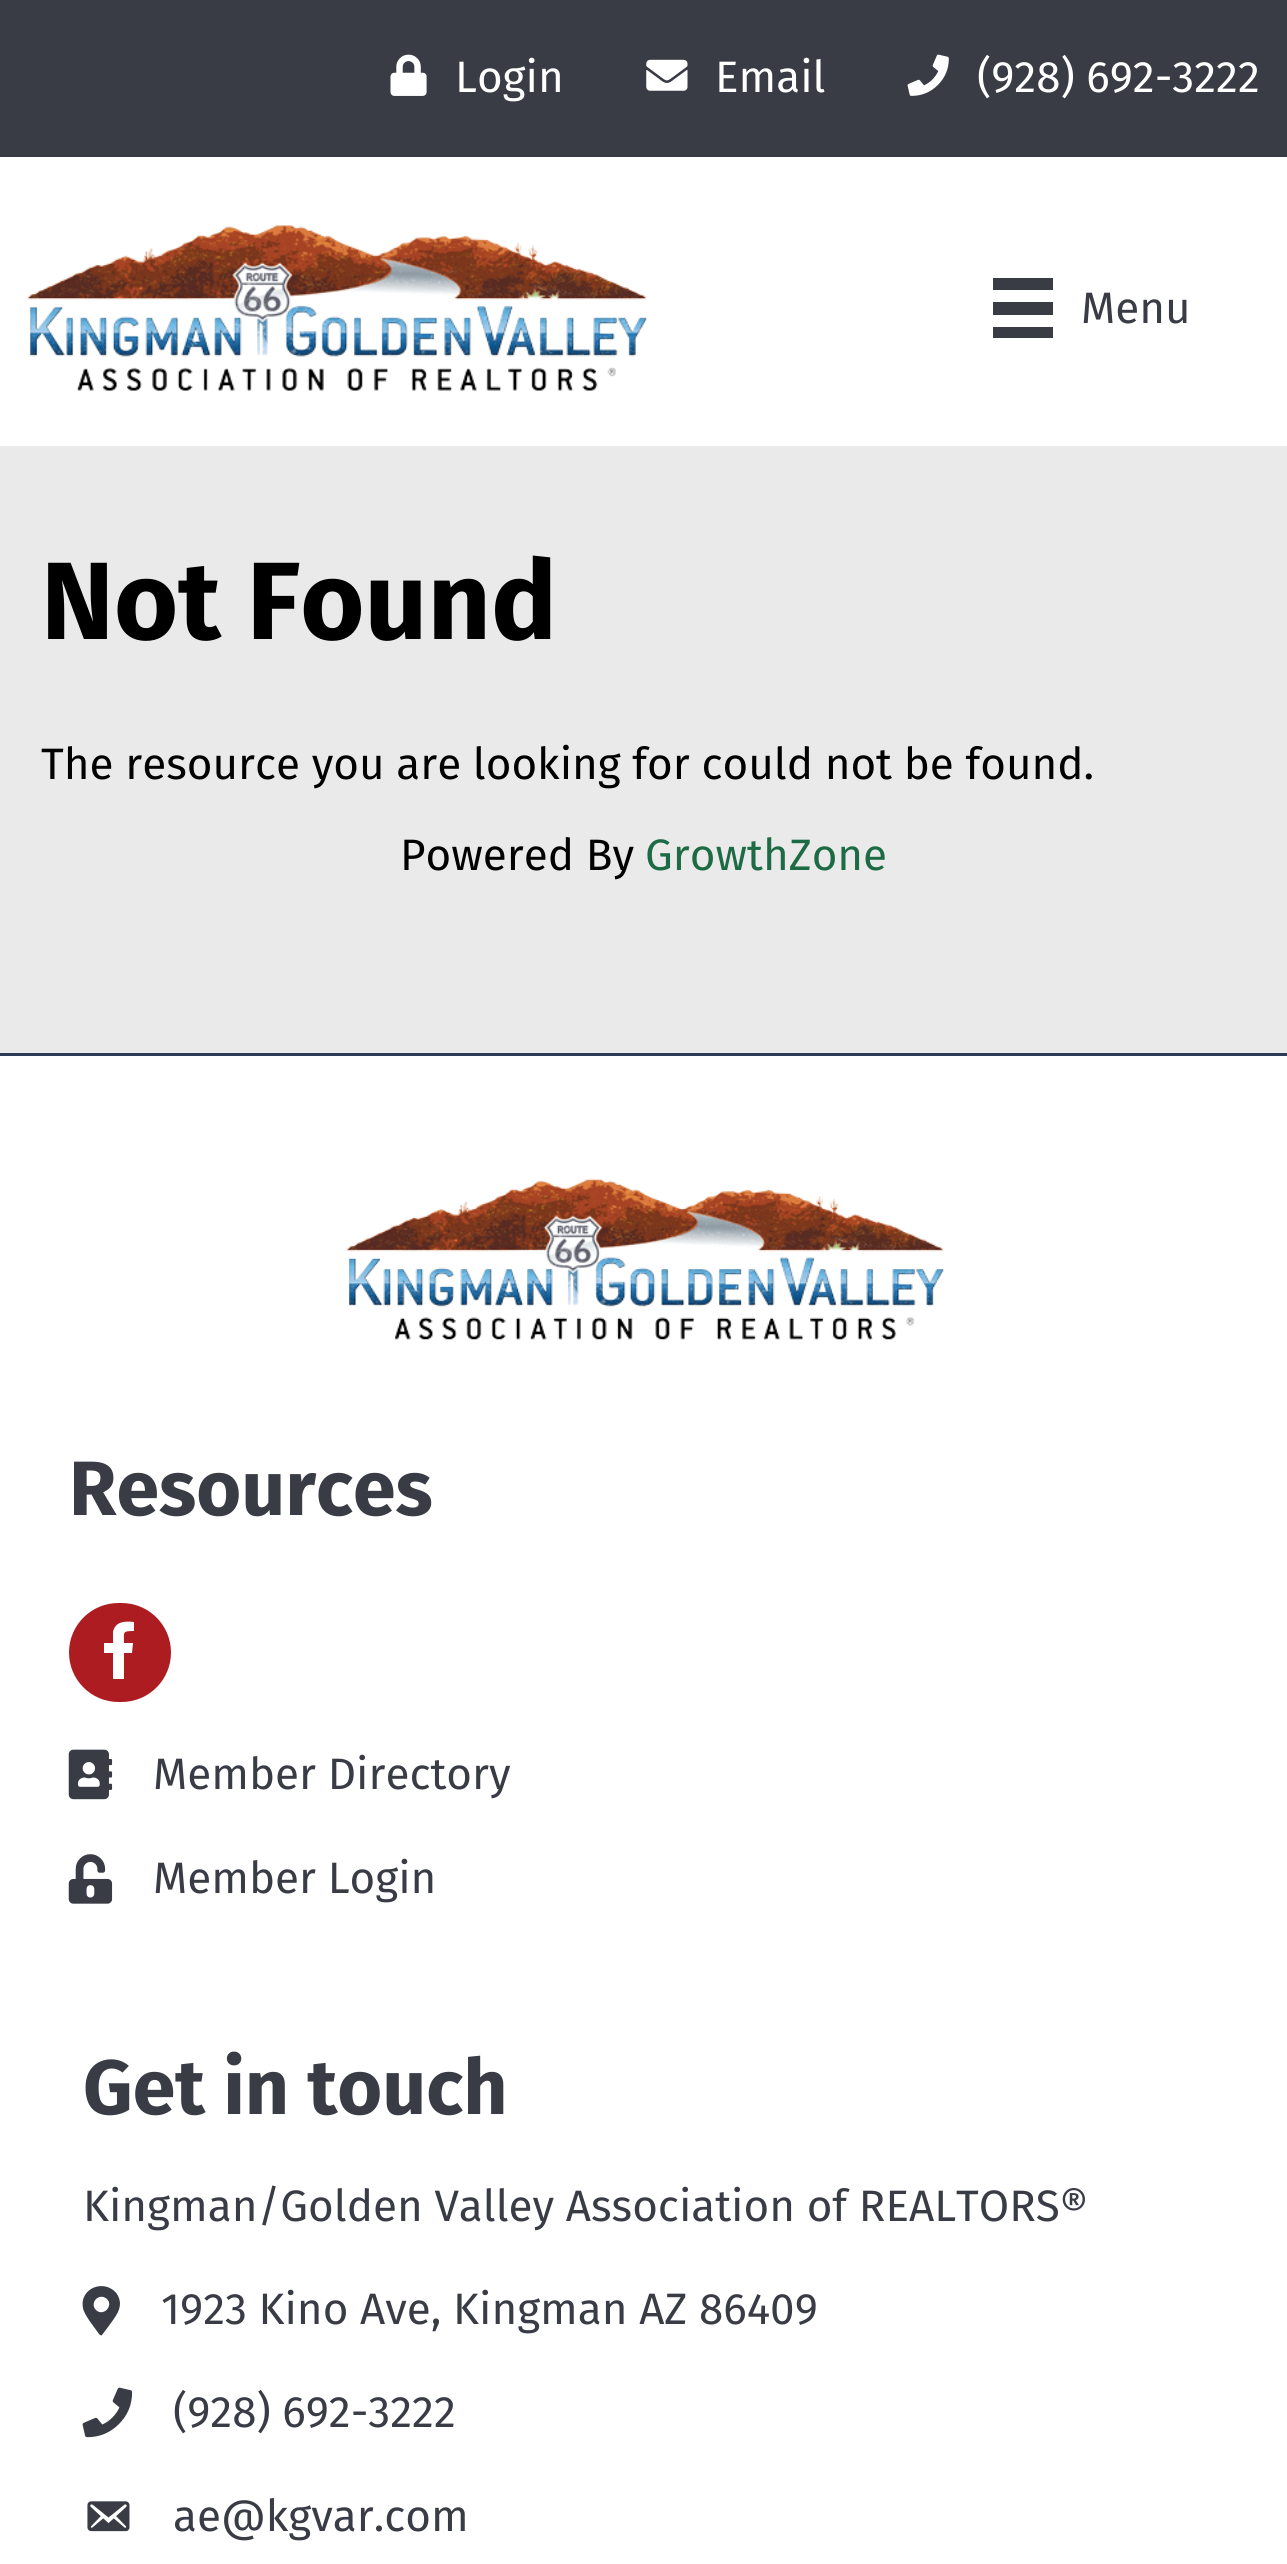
#include <cairo.h>
#include <math.h>
#include <stddef.h>

typedef struct { const char *family; double size; int italic, bold; unsigned color; } style_t;
static cairo_t *ctx;

static void ink(unsigned color) {
    cairo_set_source_rgb(ctx, (color >> 16) / 255.0, (color >> 8 & 255) / 255.0, (color & 255) / 255.0);
}

static void write(double x, double y, const char *s, const style_t *st) {
    cairo_select_font_face(ctx, st->family, st->italic ? CAIRO_FONT_SLANT_ITALIC : CAIRO_FONT_SLANT_NORMAL,
        st->bold ? CAIRO_FONT_WEIGHT_BOLD : CAIRO_FONT_WEIGHT_NORMAL);
    cairo_set_font_size(ctx, st->size);
    ink(st->color);
    cairo_move_to(ctx, x, y);
    cairo_show_text(ctx, s);
}

static void block(double x, double y, double w, double h, unsigned color) {
    ink(color);
    cairo_rectangle(ctx, x, y, w, h);
    cairo_fill(ctx);
}

static void round_path(double x, double y, double w, double h, double r) {
    cairo_new_sub_path(ctx);
    cairo_arc(ctx, x + w - r, y + h - r, r, 0, M_PI / 2);
    cairo_arc(ctx, x + r, y + h - r, r, M_PI / 2, M_PI);
    cairo_arc(ctx, x + r, y + r, r, M_PI, 1.5 * M_PI);
    cairo_arc(ctx, x + w - r, y + r, r, 1.5 * M_PI, 2 * M_PI);
    cairo_close_path(ctx);
}

static void paste(const char *path, double x, double y, double w, double h) {
    cairo_surface_t *image = cairo_image_surface_create_from_png(path);
    cairo_save(ctx);
    cairo_set_source_surface(ctx, image, x, y);
    cairo_rectangle(ctx, x, y, w, h);
    cairo_fill(ctx);
    cairo_restore(ctx);
    cairo_surface_destroy(image);
}

static const style_t s1 = {"Fira Sans", 44, 0, 0, 0xffffff};
static const style_t s2 = {"Fira Sans", 44, 0, 0, 0x393b45};
static const style_t s3 = {"Fira Sans", 110, 0, 1, 0x000000};
static const style_t s4 = {"Fira Sans", 44, 0, 0, 0x000000};
static const style_t s5 = {"Fira Sans", 44, 0, 0, 0x1d6b44};
static const style_t s6 = {"Fira Sans", 77, 0, 1, 0x393b45};

int main(void) {
    cairo_surface_t *surface = cairo_image_surface_create(CAIRO_FORMAT_RGB24, 1287, 2564);
    ctx = cairo_create(surface);
    cairo_font_options_t *options = cairo_font_options_create();
    cairo_font_options_set_hint_metrics(options, CAIRO_HINT_METRICS_OFF);
    cairo_font_options_set_hint_style(options, CAIRO_HINT_STYLE_NONE);
    cairo_set_font_options(ctx, options);
    cairo_set_miter_limit(ctx, 4);
    ink(0xffffff);
    cairo_paint(ctx);
    block(0, 0, 1287, 157, 0x393b45);
    paste("pic1.png", 390, 54, 37, 42);
    write(455, 92, "Login", &s1);
    paste("pic2.png", 646, 59, 42, 32);
    write(715, 92, "Email", &s1);
    paste("pic3.png", 907, 54, 42, 42);
    write(977, 92, "(928) 692-3222", &s1);
    paste("pic4.png", 27, 225, 620, 166);
    block(993, 278, 60, 12, 0x393b45);
    block(993, 302, 60, 13, 0x393b45);
    block(993, 327, 60, 11, 0x393b45);
    write(1081, 323, "Menu", &s2);
    block(0, 446, 1287, 607, 0xeaeaea);
    write(41, 639, "Not Found", &s3);
    write(41, 779, "The resource you are looking for could not be found.", &s4);
    write(400, 870, "Powered By", &s4);
    write(645, 870, "GrowthZone", &s5);
    block(0, 1053, 1287, 3, 0x2c3a56);
    paste("pic5.png", 346, 1179, 598, 161);
    write(69, 1515, "Resources", &s6);
    ink(0xad1c21);
    round_path(69, 1603, 102, 99, 49.5);
    cairo_fill(ctx);
    ink(0xffffff);
    cairo_new_path(ctx);
    cairo_move_to(ctx, 113, 1679);
    cairo_line_to(ctx, 113, 1653);
    cairo_line_to(ctx, 104, 1653);
    cairo_line_to(ctx, 104, 1643);
    cairo_line_to(ctx, 113, 1643);
    cairo_line_to(ctx, 113, 1632);
    cairo_curve_to(ctx, 115, 1621, 126, 1621, 134, 1622);
    cairo_line_to(ctx, 134, 1631);
    cairo_curve_to(ctx, 122, 1631, 124, 1632, 124, 1643);
    cairo_line_to(ctx, 133, 1643);
    cairo_line_to(ctx, 132, 1653);
    cairo_line_to(ctx, 124, 1653);
    cairo_line_to(ctx, 124, 1679);
    cairo_close_path(ctx);
    cairo_fill(ctx);
    paste("pic6.png", 68, 1749, 45, 51);
    write(153, 1789, "Member Directory", &s2);
    paste("pic7.png", 68, 1854, 45, 50);
    write(153, 1893, "Member Login", &s2);
    write(83, 2114, "Get in touch", &s6);
    write(83, 2221, "Kingman/Golden Valley Association of REALTORS®", &s2);
    cairo_new_path(ctx);
    cairo_move_to(ctx, 99, 2334);
    cairo_curve_to(ctx, 95, 2328, 84, 2315, 83, 2308);
    cairo_curve_to(ctx, 79, 2288, 105, 2278, 117, 2294);
    cairo_curve_to(ctx, 125, 2307, 115, 2317, 108, 2327);
    cairo_line_to(ctx, 102, 2335);
    cairo_curve_to(ctx, 101, 2336, 100, 2335, 99, 2334);
    cairo_close_path(ctx);
    cairo_move_to(ctx, 96, 2310);
    cairo_curve_to(ctx, 103, 2317, 114, 2306, 107, 2299);
    cairo_curve_to(ctx, 99, 2292, 89, 2303, 96, 2310);
    cairo_close_path(ctx);
    cairo_fill(ctx);
    write(161, 2324, "1923 Kino Ave, Kingman AZ 86409", &s2);
    paste("pic8.png", 82, 2387, 51, 51);
    write(173, 2427, "(928) 692-3222", &s2);
    paste("pic9.png", 87, 2501, 43, 31);
    write(173, 2531, "ae@kgvar.com", &s2);
    cairo_surface_write_to_png(surface, "screenshot.png");
    cairo_font_options_destroy(options);
    cairo_destroy(ctx);
    cairo_surface_destroy(surface);
    return 0;
}
